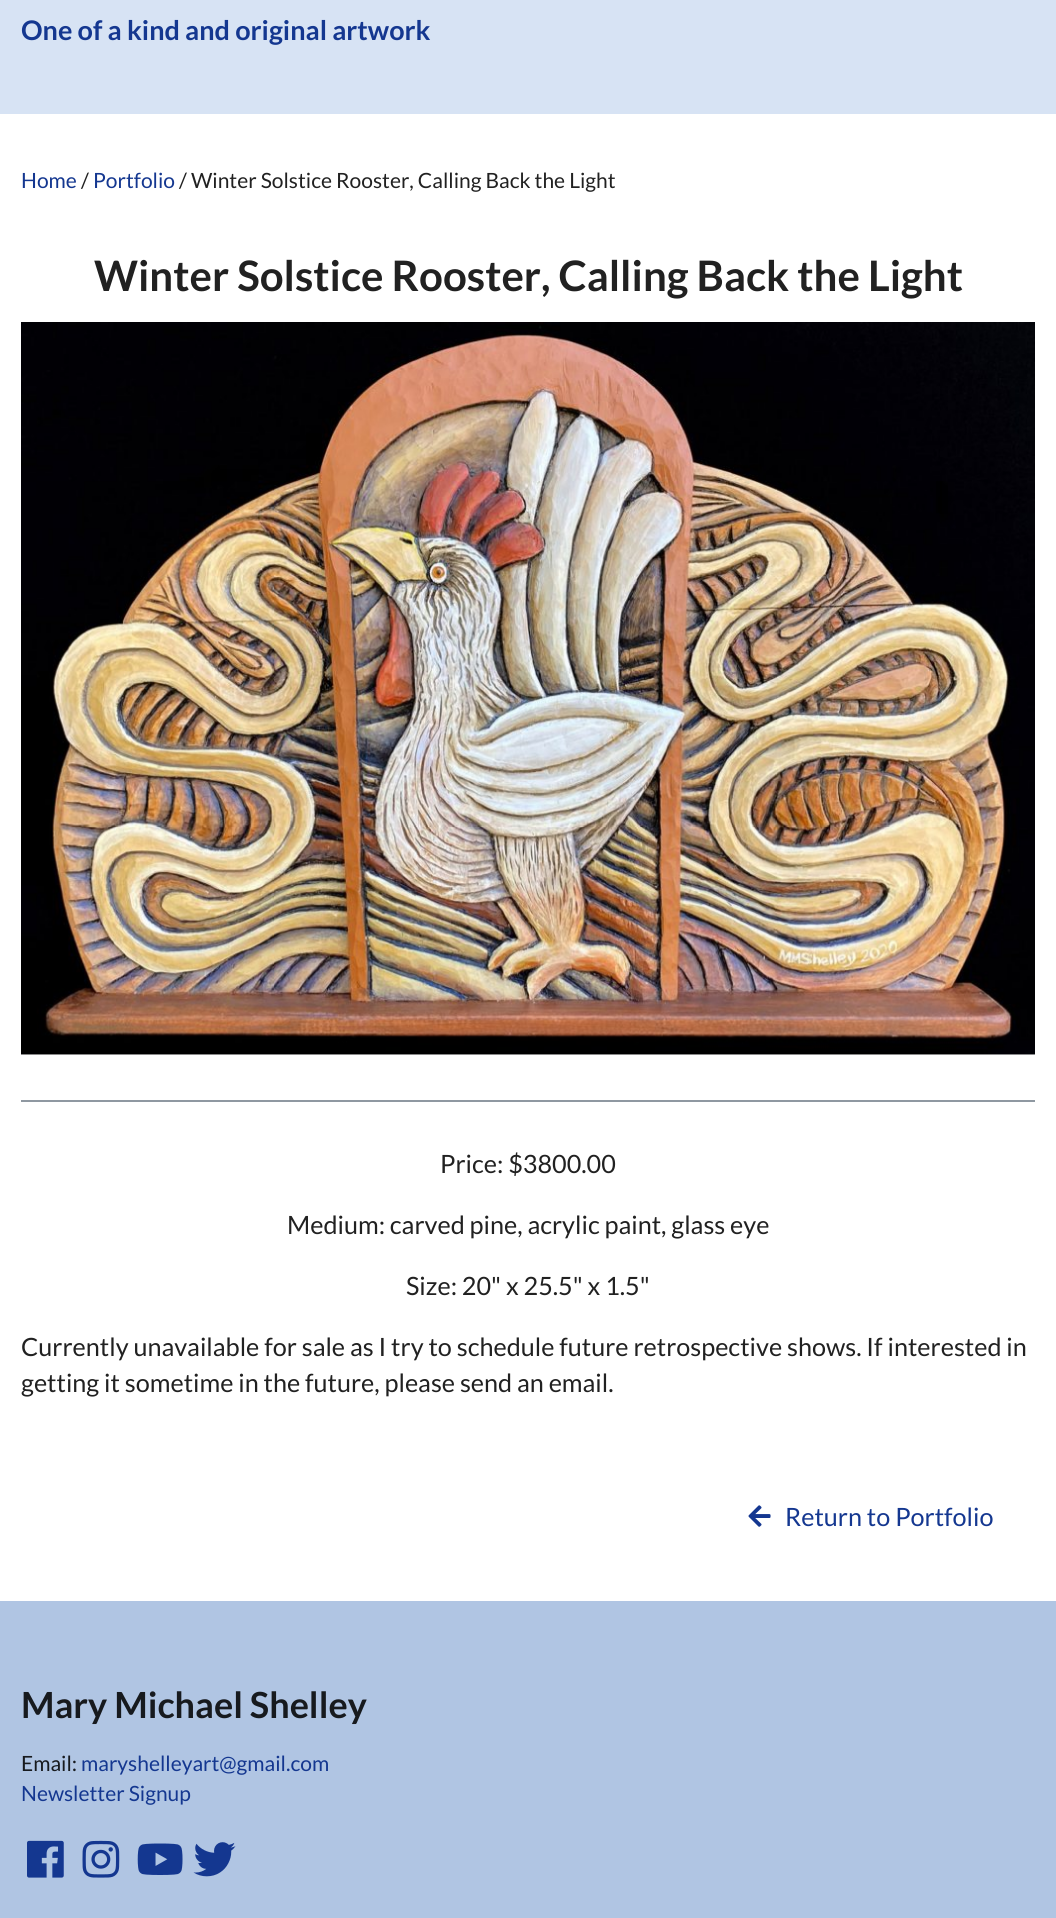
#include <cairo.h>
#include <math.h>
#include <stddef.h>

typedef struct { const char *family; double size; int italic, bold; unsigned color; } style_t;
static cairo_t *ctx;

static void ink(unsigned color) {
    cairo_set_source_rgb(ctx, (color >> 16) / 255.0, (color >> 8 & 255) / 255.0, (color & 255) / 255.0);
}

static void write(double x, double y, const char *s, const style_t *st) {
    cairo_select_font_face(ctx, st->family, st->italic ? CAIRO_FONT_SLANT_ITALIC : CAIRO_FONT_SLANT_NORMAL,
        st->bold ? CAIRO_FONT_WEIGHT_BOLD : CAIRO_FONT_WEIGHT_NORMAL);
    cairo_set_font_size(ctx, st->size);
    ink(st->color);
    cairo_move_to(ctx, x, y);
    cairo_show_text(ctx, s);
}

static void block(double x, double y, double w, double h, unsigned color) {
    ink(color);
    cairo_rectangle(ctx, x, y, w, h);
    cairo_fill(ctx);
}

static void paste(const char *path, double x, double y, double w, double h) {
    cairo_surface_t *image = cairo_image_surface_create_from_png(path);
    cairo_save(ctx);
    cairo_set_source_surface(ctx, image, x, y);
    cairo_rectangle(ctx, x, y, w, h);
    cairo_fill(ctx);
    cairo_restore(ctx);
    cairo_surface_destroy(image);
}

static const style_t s1 = {"Lato", 27, 0, 1, 0x143790};
static const style_t s2 = {"Lato", 21, 0, 0, 0x143790};
static const style_t s3 = {"Lato", 21, 0, 0, 0x212121};
static const style_t s4 = {"Lato", 42, 0, 1, 0x212121};
static const style_t s5 = {"Lato", 25.2, 0, 0, 0x212121};
static const style_t s6 = {"Lato", 25.2, 0, 0, 0x143790};
static const style_t s7 = {"Lato", 36, 0, 1, 0x171a1e};
static const style_t s8 = {"Lato", 21, 0, 0, 0x171a1e};

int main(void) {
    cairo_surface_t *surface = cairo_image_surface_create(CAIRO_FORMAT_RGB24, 1056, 1918);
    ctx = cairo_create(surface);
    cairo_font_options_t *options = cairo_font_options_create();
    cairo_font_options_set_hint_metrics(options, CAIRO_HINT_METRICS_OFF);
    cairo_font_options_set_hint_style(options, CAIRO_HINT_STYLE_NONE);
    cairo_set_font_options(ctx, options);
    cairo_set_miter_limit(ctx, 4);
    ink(0xffffff);
    cairo_paint(ctx);
    block(0, 0, 1056, 114, 0xd7e3f4);
    write(21, 40, "One of a kind and original artwork", &s1);
    write(21, 188, "Home", &s2);
    write(81, 188, "/", &s3);
    write(93, 188, "Portfolio", &s2);
    write(179, 188, "/ Winter Solstice Rooster, Calling Back the Light", &s3);
    write(94, 291, "Winter Solstice Rooster, Calling Back the Light", &s4);
    paste("pic1.png", 21, 322, 1014, 733);
    block(21, 1100, 1014, 2, 0x8f98a1);
    write(440, 1173, "Price: $3800.00", &s5);
    write(287, 1234, "Medium: carved pine, acrylic paint, glass eye", &s5);
    write(406, 1295, "Size: 20\" x 25.5\" x 1.5\"", &s5);
    write(21, 1356, "Currently unavailable for sale as I try to schedule future retrospective shows. If interested in", &s5);
    write(21, 1392, "getting it sometime in the future, please send an email.", &s5);
    paste("pic2.png", 748, 1505, 23, 22);
    write(785, 1526, "Return to Portfolio", &s6);
    block(0, 1601, 1056, 317, 0xb0c5e3);
    write(21, 1718, "Mary Michael Shelley", &s7);
    write(21, 1771, "Email:", &s8);
    write(81, 1771, "maryshelleyart@gmail.com", &s2);
    write(21, 1801, "Newsletter Signup", &s2);
    paste("pic3.png", 27, 1840, 37, 38);
    paste("pic4.png", 82, 1840, 38, 38);
    paste("pic5.png", 137, 1843, 46, 32);
    paste("pic6.png", 193, 1842, 43, 35);
    cairo_surface_write_to_png(surface, "screenshot.png");
    cairo_font_options_destroy(options);
    cairo_destroy(ctx);
    cairo_surface_destroy(surface);
    return 0;
}
